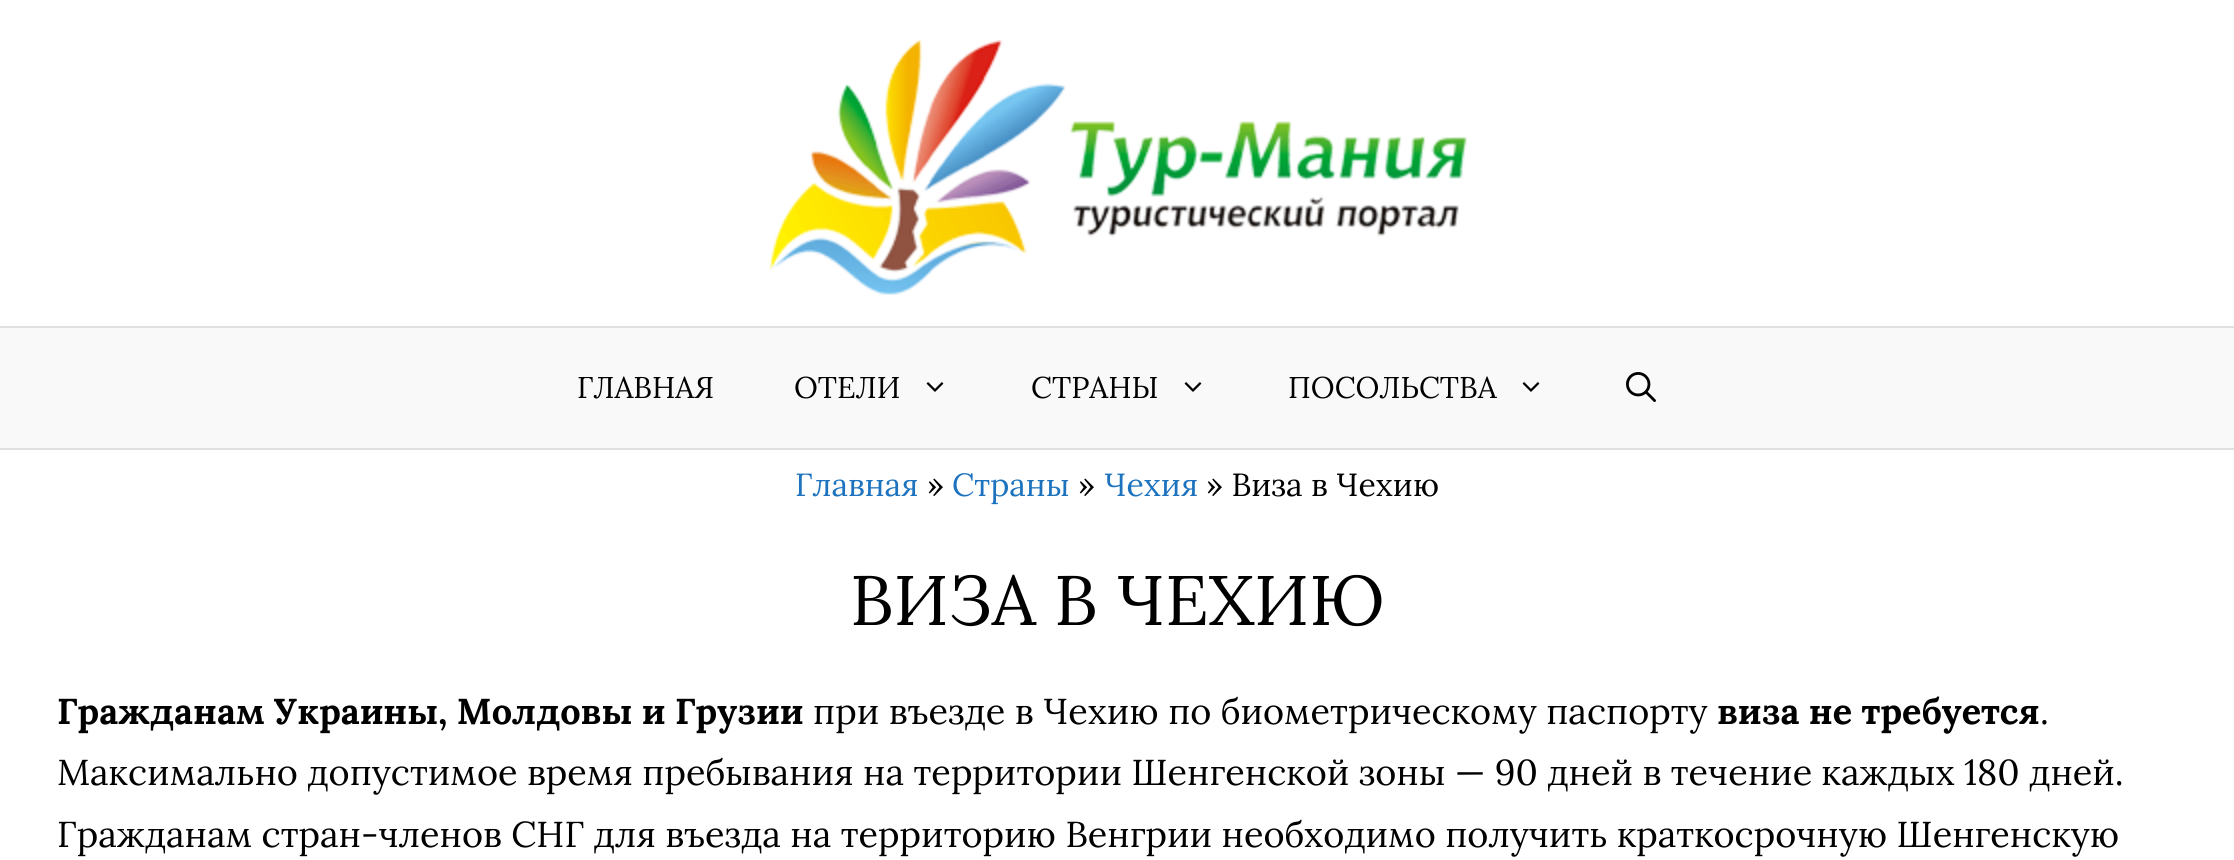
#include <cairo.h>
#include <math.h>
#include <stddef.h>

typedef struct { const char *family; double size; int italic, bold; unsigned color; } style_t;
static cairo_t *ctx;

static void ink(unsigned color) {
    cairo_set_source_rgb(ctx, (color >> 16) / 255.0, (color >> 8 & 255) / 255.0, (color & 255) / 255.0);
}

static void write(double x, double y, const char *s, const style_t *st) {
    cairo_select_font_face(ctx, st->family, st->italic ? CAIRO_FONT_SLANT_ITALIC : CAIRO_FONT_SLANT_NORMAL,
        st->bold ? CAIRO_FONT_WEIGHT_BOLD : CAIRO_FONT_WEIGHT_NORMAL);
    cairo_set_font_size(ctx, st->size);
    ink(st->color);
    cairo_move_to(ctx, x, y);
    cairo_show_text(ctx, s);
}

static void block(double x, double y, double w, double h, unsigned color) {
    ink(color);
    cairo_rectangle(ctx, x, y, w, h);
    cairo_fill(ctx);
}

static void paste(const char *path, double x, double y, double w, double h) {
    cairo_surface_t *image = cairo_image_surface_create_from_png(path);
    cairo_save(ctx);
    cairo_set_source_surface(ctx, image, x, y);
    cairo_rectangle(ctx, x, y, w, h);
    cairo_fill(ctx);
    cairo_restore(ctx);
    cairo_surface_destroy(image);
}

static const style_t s1 = {"Lora", 30, 0, 0, 0x000000};
static const style_t s2 = {"Lora", 32, 0, 0, 0x1e73be};
static const style_t s3 = {"Lora", 32, 0, 0, 0x000000};
static const style_t s4 = {"Lora", 70, 0, 0, 0x000000};
static const style_t s5 = {"Lora", 36, 0, 1, 0x000000};
static const style_t s6 = {"Lora", 36, 0, 0, 0x000000};

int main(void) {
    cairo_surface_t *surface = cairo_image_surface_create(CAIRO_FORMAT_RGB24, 2234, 860);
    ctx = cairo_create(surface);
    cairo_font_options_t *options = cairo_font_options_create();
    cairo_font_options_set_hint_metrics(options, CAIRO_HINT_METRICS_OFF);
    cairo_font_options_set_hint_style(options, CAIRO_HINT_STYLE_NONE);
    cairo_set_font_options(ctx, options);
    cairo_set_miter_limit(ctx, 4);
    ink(0xffffff);
    cairo_paint(ctx);
    paste("pic1.png", 769, 40, 698, 255);
    block(0, 328, 2234, 120, 0xf9f9f9);
    block(0, 326, 2234, 2, 0xe0e0e0);
    block(0, 448, 2234, 2, 0xe0e0e0);
    write(577, 398, "ГЛАВНАЯ", &s1);
    write(794, 398, "ОТЕЛИ", &s1);
    paste("pic2.png", 926, 382, 18, 10);
    write(1031, 398, "СТРАНЫ", &s1);
    paste("pic2.png", 1184, 382, 18, 10);
    write(1288, 398, "ПОСОЛЬСТВА", &s1);
    paste("pic2.png", 1522, 382, 18, 10);
    paste("pic3.png", 1626, 372, 30, 30);
    write(795, 496, "Главная", &s2);
    write(927, 496, "»", &s3);
    write(952, 496, "Страны", &s2);
    write(1078, 496, "»", &s3);
    write(1104, 496, "Чехия", &s2);
    write(1206, 496, "» Виза в Чехию", &s3);
    write(850, 625, "ВИЗА В ЧЕХИЮ", &s4);
    write(57, 724, "Гражданам Украины, Молдовы и Грузии", &s5);
    write(813, 724, "при въезде в Чехию по биометрическому паспорту", &s6);
    write(1717, 724, "виза не требуется", &s5);
    write(2040, 724, ".", &s6);
    write(57, 785, "Максимально допустимое время пребывания на территории Шенгенской зоны — 90 дней в течение каждых 180 дней.", &s6);
    write(57, 847, "Гражданам стран-членов СНГ для въезда на территорию Венгрии необходимо получить краткосрочную Шенгенскую", &s6);
    cairo_surface_write_to_png(surface, "screenshot.png");
    cairo_font_options_destroy(options);
    cairo_destroy(ctx);
    cairo_surface_destroy(surface);
    return 0;
}
